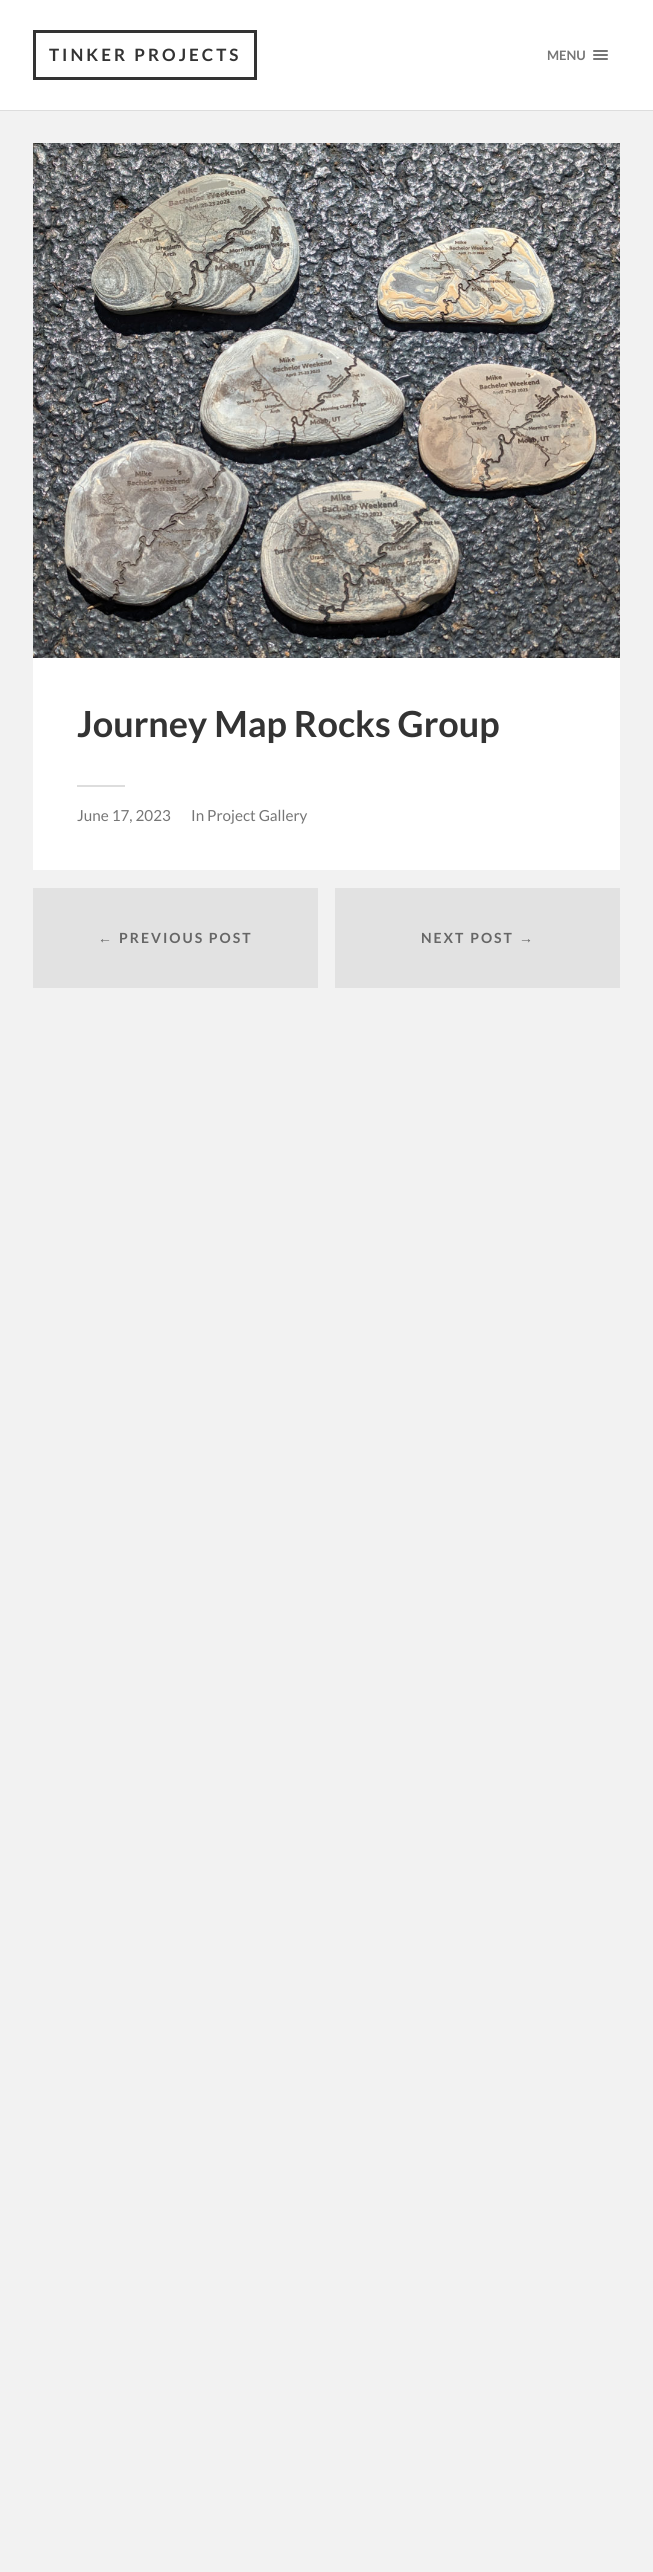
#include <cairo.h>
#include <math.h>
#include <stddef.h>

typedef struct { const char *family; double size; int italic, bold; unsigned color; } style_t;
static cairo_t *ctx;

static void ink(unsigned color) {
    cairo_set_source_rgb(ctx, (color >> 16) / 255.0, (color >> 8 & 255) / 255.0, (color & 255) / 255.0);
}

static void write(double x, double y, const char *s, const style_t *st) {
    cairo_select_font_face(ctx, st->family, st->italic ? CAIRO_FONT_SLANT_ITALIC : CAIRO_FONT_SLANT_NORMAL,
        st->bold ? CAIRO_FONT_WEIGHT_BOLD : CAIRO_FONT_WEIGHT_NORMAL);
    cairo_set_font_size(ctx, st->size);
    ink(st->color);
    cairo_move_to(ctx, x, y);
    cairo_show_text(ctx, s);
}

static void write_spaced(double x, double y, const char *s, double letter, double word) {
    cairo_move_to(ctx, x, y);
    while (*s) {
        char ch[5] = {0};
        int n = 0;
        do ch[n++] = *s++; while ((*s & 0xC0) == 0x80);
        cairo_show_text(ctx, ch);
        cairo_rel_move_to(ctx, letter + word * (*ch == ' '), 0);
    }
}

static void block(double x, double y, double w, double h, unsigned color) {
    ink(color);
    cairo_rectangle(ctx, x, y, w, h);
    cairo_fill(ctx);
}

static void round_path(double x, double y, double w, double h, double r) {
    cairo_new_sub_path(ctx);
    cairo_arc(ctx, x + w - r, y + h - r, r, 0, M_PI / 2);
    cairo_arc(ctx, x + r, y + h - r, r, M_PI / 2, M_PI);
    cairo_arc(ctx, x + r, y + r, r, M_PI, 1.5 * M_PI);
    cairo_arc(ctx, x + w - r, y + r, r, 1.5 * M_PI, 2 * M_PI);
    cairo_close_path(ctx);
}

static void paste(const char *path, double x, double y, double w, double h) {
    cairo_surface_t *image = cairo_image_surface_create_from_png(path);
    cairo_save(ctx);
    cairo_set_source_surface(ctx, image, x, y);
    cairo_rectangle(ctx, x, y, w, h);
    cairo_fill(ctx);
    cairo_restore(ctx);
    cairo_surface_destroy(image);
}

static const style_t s1 = {"Lato", 13, 0, 1, 0x767676};
static const style_t s2 = {"Lato", 36, 0, 1, 0x333333};
static const style_t s3 = {"Lato", 15.25, 0, 0, 0x767676};

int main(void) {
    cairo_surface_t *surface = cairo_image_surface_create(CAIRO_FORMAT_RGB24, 653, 2572);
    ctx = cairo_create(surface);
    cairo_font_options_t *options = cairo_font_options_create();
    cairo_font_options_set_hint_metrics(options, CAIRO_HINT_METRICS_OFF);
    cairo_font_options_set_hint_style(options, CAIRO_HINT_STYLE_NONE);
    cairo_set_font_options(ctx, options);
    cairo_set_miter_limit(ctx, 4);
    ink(0xf2f2f2);
    cairo_paint(ctx);
    block(0, 0, 653, 110, 0xffffff);
    block(0, 110, 653, 1, 0xdddddd);
    cairo_rectangle(ctx, 34.5, 31.5, 221, 47);
    ink(0x333333);
    cairo_set_line_width(ctx, 3);
    cairo_stroke(ctx);
    cairo_select_font_face(ctx, "Lato", CAIRO_FONT_SLANT_NORMAL, CAIRO_FONT_WEIGHT_BOLD);
    cairo_set_font_size(ctx, 17);
    write_spaced(49, 61, "TINKER PROJECTS", 3, 0);
    write(547, 60, "MENU", &s1);
    round_path(593, 50, 15, 2, 1);
    cairo_fill(ctx);
    round_path(593, 54, 15, 2, 1);
    cairo_fill(ctx);
    round_path(593, 58, 15, 2, 1);
    cairo_fill(ctx);
    block(33, 658, 587, 212, 0xffffff);
    paste("pic1.png", 33, 143, 587, 515);
    write(77, 737, "Journey Map Rocks Group", &s2);
    block(77, 785, 48, 2, 0xdddddd);
    write(77, 821, "June 17, 2023", &s3);
    write(191, 821, "In Project Gallery", &s3);
    block(33, 888, 285, 100, 0xe2e2e2);
    cairo_select_font_face(ctx, "Liberation Sans", CAIRO_FONT_SLANT_NORMAL, CAIRO_FONT_WEIGHT_BOLD);
    cairo_set_font_size(ctx, 14);
    ink(0x666666);
    write_spaced(98, 943, "←", 2, 0);
    cairo_select_font_face(ctx, "Lato", CAIRO_FONT_SLANT_NORMAL, CAIRO_FONT_WEIGHT_BOLD);
    write_spaced(119, 943, "PREVIOUS POST", 2, 0);
    block(335, 888, 285, 100, 0xe2e2e2);
    ink(0x666666);
    write_spaced(421, 943, "NEXT POST", 2, 0);
    cairo_select_font_face(ctx, "Liberation Sans", CAIRO_FONT_SLANT_NORMAL, CAIRO_FONT_WEIGHT_BOLD);
    write_spaced(519, 943, "→", 2, 0);
    cairo_surface_write_to_png(surface, "screenshot.png");
    cairo_font_options_destroy(options);
    cairo_destroy(ctx);
    cairo_surface_destroy(surface);
    return 0;
}
